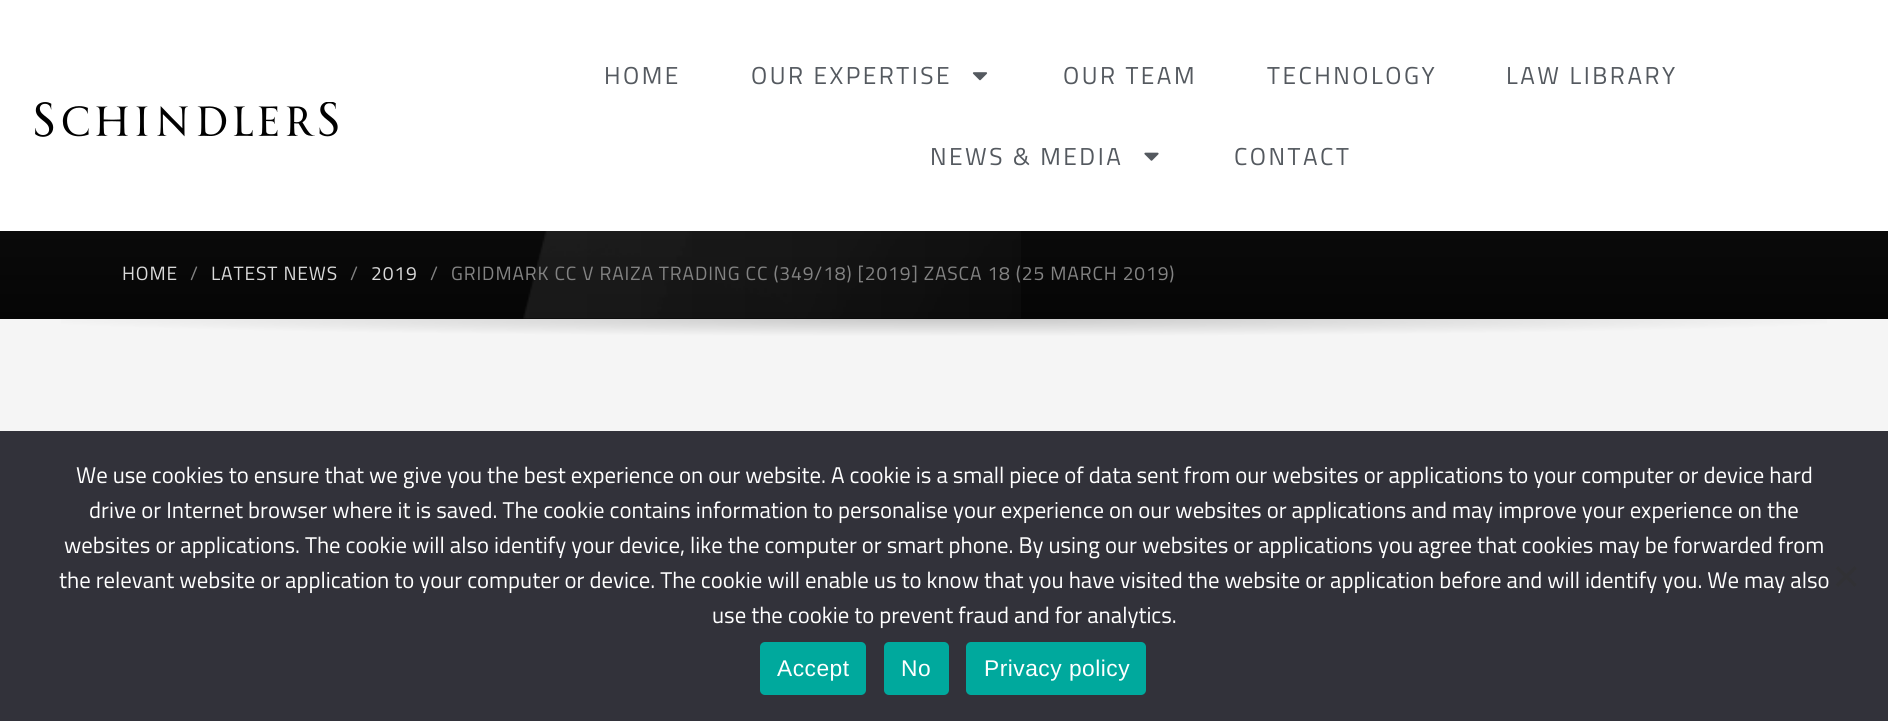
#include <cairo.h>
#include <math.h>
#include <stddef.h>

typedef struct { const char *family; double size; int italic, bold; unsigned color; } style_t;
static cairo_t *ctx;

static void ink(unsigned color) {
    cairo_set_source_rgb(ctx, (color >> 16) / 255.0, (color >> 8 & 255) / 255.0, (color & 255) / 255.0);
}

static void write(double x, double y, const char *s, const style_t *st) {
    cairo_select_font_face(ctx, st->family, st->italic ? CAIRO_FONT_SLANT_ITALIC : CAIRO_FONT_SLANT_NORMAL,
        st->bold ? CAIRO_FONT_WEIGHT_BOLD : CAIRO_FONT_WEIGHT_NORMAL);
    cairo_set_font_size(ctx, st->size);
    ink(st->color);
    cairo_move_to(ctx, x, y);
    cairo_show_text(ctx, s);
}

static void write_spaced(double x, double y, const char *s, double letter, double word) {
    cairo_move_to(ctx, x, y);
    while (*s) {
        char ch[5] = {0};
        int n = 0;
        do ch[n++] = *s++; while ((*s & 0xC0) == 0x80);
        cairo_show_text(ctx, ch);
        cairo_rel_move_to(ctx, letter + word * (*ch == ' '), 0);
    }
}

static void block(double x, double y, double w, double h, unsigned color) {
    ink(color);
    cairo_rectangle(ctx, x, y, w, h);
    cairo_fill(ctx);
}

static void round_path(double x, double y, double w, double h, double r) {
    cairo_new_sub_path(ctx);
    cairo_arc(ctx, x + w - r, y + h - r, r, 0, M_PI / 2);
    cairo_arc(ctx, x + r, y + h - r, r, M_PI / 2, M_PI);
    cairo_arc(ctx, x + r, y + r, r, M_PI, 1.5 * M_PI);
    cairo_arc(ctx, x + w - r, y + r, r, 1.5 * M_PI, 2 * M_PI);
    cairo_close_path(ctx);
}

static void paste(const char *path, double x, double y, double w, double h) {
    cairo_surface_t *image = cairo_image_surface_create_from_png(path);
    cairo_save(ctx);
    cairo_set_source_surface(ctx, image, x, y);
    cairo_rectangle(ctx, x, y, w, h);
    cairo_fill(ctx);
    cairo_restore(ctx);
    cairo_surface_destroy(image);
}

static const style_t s1 = {"Titillium Web", 22.75, 0, 0, 0xffffff};

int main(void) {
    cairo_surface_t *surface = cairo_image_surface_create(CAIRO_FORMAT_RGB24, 1888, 721);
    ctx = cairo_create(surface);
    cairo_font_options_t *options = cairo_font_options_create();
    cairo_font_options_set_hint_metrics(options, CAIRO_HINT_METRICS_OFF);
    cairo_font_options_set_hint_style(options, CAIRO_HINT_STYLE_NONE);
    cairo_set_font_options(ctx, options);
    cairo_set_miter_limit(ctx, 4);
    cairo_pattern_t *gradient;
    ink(0xf5f5f5);
    cairo_paint(ctx);
    block(0, 0, 1888, 231, 0xffffff);
    paste("pic1.png", 35, 102, 303, 35);
    cairo_select_font_face(ctx, "Titillium Web", CAIRO_FONT_SLANT_NORMAL, CAIRO_FONT_WEIGHT_NORMAL);
    cairo_set_font_size(ctx, 24.5);
    ink(0x54595f);
    write_spaced(604, 84, "HOME", 2.5, 0);
    write_spaced(751, 84, "OUR EXPERTISE", 2.5, 0);
    paste("pic2.png", 972, 72, 16, 9);
    write_spaced(1063, 84, "OUR TEAM", 2.5, 0);
    write_spaced(1267, 84, "TECHNOLOGY", 2.5, 0);
    write_spaced(1506, 84, "LAW LIBRARY", 2.5, 0);
    write_spaced(930, 165, "NEWS & MEDIA", 2.5, 0);
    paste("pic3.png", 1144, 152, 15, 9);
    write_spaced(1234, 165, "CONTACT", 2.5, 0);
    gradient = cairo_pattern_create_linear(944, 231, 944, 319);
    cairo_pattern_add_color_stop_rgba(gradient, 0, 0.039, 0.039, 0.039, 1);
    cairo_pattern_add_color_stop_rgba(gradient, 1, 0.02, 0.02, 0.02, 1);
    cairo_set_source(ctx, gradient);
    cairo_pattern_destroy(gradient);
    cairo_rectangle(ctx, 0, 231, 1888, 88);
    cairo_fill(ctx);
    paste("pic4.png", 523, 231, 498, 88);
    cairo_set_font_size(ctx, 19.25);
    ink(0xdadada);
    write_spaced(122, 280, "HOME", 0.88, 0);
    ink(0x838383);
    write_spaced(190, 280, "/", 0.88, 0);
    ink(0xdadada);
    write_spaced(211, 280, "LATEST NEWS", 0.88, 0);
    ink(0x838383);
    write_spaced(350, 280, "/", 0.88, 0);
    ink(0xdadada);
    write_spaced(371, 280, "2019", 0.88, 0);
    ink(0x838383);
    write_spaced(430, 280, "/", 0.88, 0);
    write_spaced(451, 280, "GRIDMARK CC V RAIZA TRADING CC (349/18) [2019] ZASCA 18 (25 MARCH 2019)", 0.88, 0);
    gradient = cairo_pattern_create_radial(0, 0, 0, 0, 0, 1);
    cairo_pattern_set_matrix(gradient, &(cairo_matrix_t){1.0 / 1335, 0, 0, 1.0 / 25, -1.0 * 944 / 1335, -1.0 * 319 / 25});
    cairo_pattern_add_color_stop_rgba(gradient, 0, 0.788, 0.788, 0.788, 1);
    cairo_pattern_add_color_stop_rgba(gradient, 0.7, 0.961, 0.961, 0.961, 1);
    cairo_set_source(ctx, gradient);
    cairo_pattern_destroy(gradient);
    cairo_rectangle(ctx, 61, 319, 1766, 17);
    cairo_fill(ctx);
    block(0, 431, 1888, 290, 0x32323a);
    write(76, 483, "We use cookies to ensure that we give you the best experience on our website. A cookie is a small piece of data sent from our websites or applications to your computer or device hard", &s1);
    write(89, 518, "drive or Internet browser where it is saved. The cookie contains information to personalise your experience on our websites or applications and may improve your experience on the", &s1);
    write(64, 553, "websites or applications. The cookie will also identify your device, like the computer or smart phone. By using our websites or applications you agree that cookies may be forwarded from", &s1);
    write(59, 588, "the relevant website or application to your computer or device. The cookie will enable us to know that you have visited the website or application before and will identify you. We may also", &s1);
    write(712, 623, "use the cookie to prevent fraud and for analytics.", &s1);
    ink(0x313135);
    cairo_new_path(ctx);
    cairo_move_to(ctx, 1854.5, 566);
    cairo_line_to(ctx, 1857, 568.5);
    cairo_line_to(ctx, 1838, 587);
    cairo_line_to(ctx, 1835.5, 584.5);
    cairo_close_path(ctx);
    cairo_fill(ctx);
    cairo_new_path(ctx);
    cairo_move_to(ctx, 1835.5, 568.5);
    cairo_line_to(ctx, 1838, 566);
    cairo_line_to(ctx, 1857, 584.5);
    cairo_line_to(ctx, 1854.5, 587);
    cairo_close_path(ctx);
    cairo_fill(ctx);
    ink(0x00a99d);
    round_path(760, 642, 106, 53, 5);
    cairo_fill(ctx);
    cairo_select_font_face(ctx, "Liberation Sans", CAIRO_FONT_SLANT_NORMAL, CAIRO_FONT_WEIGHT_NORMAL);
    ink(0xffffff);
    write_spaced(777, 676, "Accept", 0.5, 0);
    ink(0x00a99d);
    round_path(884, 642, 65, 53, 5);
    cairo_fill(ctx);
    ink(0xffffff);
    write_spaced(901, 676, "No", 0.5, 0);
    ink(0x00a99d);
    round_path(966, 642, 180, 53, 5);
    cairo_fill(ctx);
    ink(0xffffff);
    write_spaced(984, 676, "Privacy policy", 0.5, 0);
    cairo_surface_write_to_png(surface, "screenshot.png");
    cairo_font_options_destroy(options);
    cairo_destroy(ctx);
    cairo_surface_destroy(surface);
    return 0;
}
